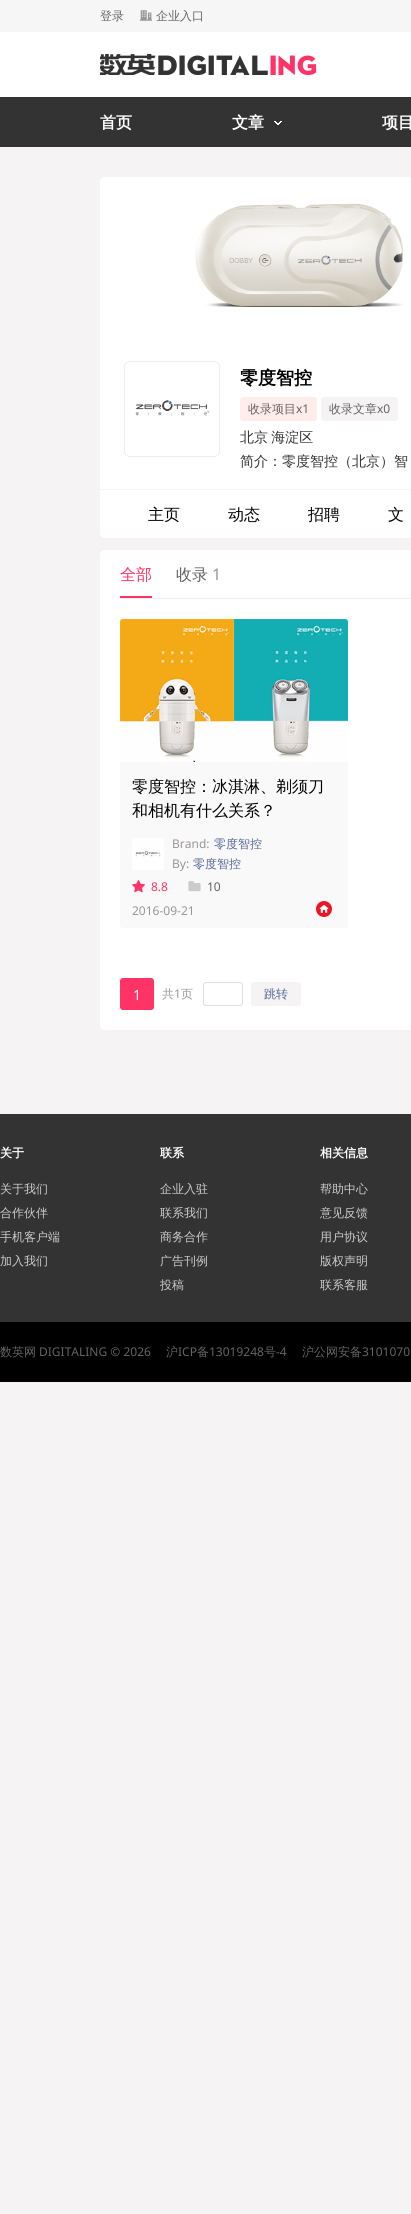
#include <cairo.h>
#include <math.h>
#include <stddef.h>

typedef struct { const char *family; double size; int italic, bold; unsigned color; } style_t;
static cairo_t *ctx;

static void ink(unsigned color) {
    cairo_set_source_rgb(ctx, (color >> 16) / 255.0, (color >> 8 & 255) / 255.0, (color & 255) / 255.0);
}

static void write(double x, double y, const char *s, const style_t *st) {
    cairo_select_font_face(ctx, st->family, st->italic ? CAIRO_FONT_SLANT_ITALIC : CAIRO_FONT_SLANT_NORMAL,
        st->bold ? CAIRO_FONT_WEIGHT_BOLD : CAIRO_FONT_WEIGHT_NORMAL);
    cairo_set_font_size(ctx, st->size);
    ink(st->color);
    cairo_move_to(ctx, x, y);
    cairo_show_text(ctx, s);
}

static void write_spaced(double x, double y, const char *s, double letter, double word) {
    cairo_move_to(ctx, x, y);
    while (*s) {
        char ch[5] = {0};
        int n = 0;
        do ch[n++] = *s++; while ((*s & 0xC0) == 0x80);
        cairo_show_text(ctx, ch);
        cairo_rel_move_to(ctx, letter + word * (*ch == ' '), 0);
    }
}

static void block(double x, double y, double w, double h, unsigned color) {
    ink(color);
    cairo_rectangle(ctx, x, y, w, h);
    cairo_fill(ctx);
}

static void round_path(double x, double y, double w, double h, double r) {
    cairo_new_sub_path(ctx);
    cairo_arc(ctx, x + w - r, y + h - r, r, 0, M_PI / 2);
    cairo_arc(ctx, x + r, y + h - r, r, M_PI / 2, M_PI);
    cairo_arc(ctx, x + r, y + r, r, M_PI, 1.5 * M_PI);
    cairo_arc(ctx, x + w - r, y + r, r, 1.5 * M_PI, 2 * M_PI);
    cairo_close_path(ctx);
}

static void paste(const char *path, double x, double y, double w, double h) {
    cairo_surface_t *image = cairo_image_surface_create_from_png(path);
    cairo_save(ctx);
    cairo_set_source_surface(ctx, image, x, y);
    cairo_rectangle(ctx, x, y, w, h);
    cairo_fill(ctx);
    cairo_restore(ctx);
    cairo_surface_destroy(image);
}

static const style_t s1 = {"WenQuanYi Zen Hei Medium", 12, 0, 0, 0x666363};
static const style_t s2 = {"WenQuanYi Zen Hei", 16, 0, 1, 0xffffff};
static const style_t s3 = {"WenQuanYi Zen Hei", 18, 0, 1, 0x000000};
static const style_t s4 = {"Noto Sans", 12, 0, 0, 0x666363};
static const style_t s5 = {"WenQuanYi Zen Hei Medium", 14, 0, 0, 0x333131};
static const style_t s6 = {"WenQuanYi Zen Hei Medium", 16, 0, 0, 0x000000};
static const style_t s7 = {"WenQuanYi Zen Hei Medium", 16, 0, 0, 0xff3366};
static const style_t s8 = {"WenQuanYi Zen Hei Medium", 16, 0, 0, 0x666363};
static const style_t s9 = {"Noto Sans", 16, 0, 0, 0x999696};
static const style_t s10 = {"Noto Sans", 12, 0, 0, 0x999696};
static const style_t s11 = {"WenQuanYi Zen Hei Medium", 12, 0, 0, 0x556699};
static const style_t s12 = {"Noto Sans", 12, 0, 0, 0xff3366};
static const style_t s13 = {"Noto Sans", 14, 0, 0, 0xffffff};
static const style_t s14 = {"WenQuanYi Zen Hei Medium", 12, 0, 0, 0x999696};
static const style_t s15 = {"WenQuanYi Zen Hei", 12, 0, 1, 0xffffff};
static const style_t s16 = {"WenQuanYi Zen Hei Medium", 12, 0, 0, 0xcccccc};

int main(void) {
    cairo_surface_t *surface = cairo_image_surface_create(CAIRO_FORMAT_RGB24, 411, 2214);
    ctx = cairo_create(surface);
    cairo_font_options_t *options = cairo_font_options_create();
    cairo_font_options_set_hint_metrics(options, CAIRO_HINT_METRICS_OFF);
    cairo_font_options_set_hint_style(options, CAIRO_HINT_STYLE_NONE);
    cairo_set_font_options(ctx, options);
    cairo_set_miter_limit(ctx, 4);
    ink(0xf5f3f3);
    cairo_paint(ctx);
    block(0, 32, 411, 65, 0xffffff);
    block(0, 0, 411, 32, 0xf6f6f6);
    write(100, 20, "登录", &s1);
    paste("pic1.png", 140, 10, 12, 11);
    write(156, 20, "企业入口", &s1);
    paste("pic2.png", 100, 54, 216, 21);
    block(0, 97, 411, 50, 0x333333);
    write(100, 128, "首页", &s2);
    write(232, 128, "文章", &s2);
    paste("pic3.png", 274, 121, 8, 4);
    write(382, 128, "项目", &s2);
    round_path(100, 177, 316, 361, 5);
    cairo_fill(ctx);
    paste("pic4.png", 195, 203, 209, 104);
    round_path(124.5, 361.5, 95, 95, 5.5);
    ink(0xeeecec);
    cairo_set_line_width(ctx, 1);
    cairo_stroke(ctx);
    paste("pic5.png", 126, 363, 92, 92);
    write(240, 384, "零度智控", &s3);
    ink(0xffedeb);
    round_path(240, 397, 77, 24, 3);
    cairo_fill(ctx);
    write(248, 413, "收录项目", &s1);
    write(296, 413, "x1", &s4);
    ink(0xf5f3f3);
    round_path(321, 397, 77, 24, 3);
    cairo_fill(ctx);
    write(329, 413, "收录文章", &s1);
    write(377, 413, "x0", &s4);
    cairo_select_font_face(ctx, "WenQuanYi Zen Hei Medium", CAIRO_FONT_SLANT_NORMAL, CAIRO_FONT_WEIGHT_NORMAL);
    cairo_set_font_size(ctx, 14);
    ink(0x333131);
    write_spaced(240, 442, "北京 海淀区", 0, -1);
    write(240, 466, "简介：零度智控（北京）智", &s5);
    block(100, 489, 311, 1, 0xf5f3f3);
    write(148, 520, "主页", &s6);
    write(228, 520, "动态", &s6);
    write(308, 520, "招聘", &s6);
    write(388, 520, "文", &s6);
    ink(0xffffff);
    round_path(100, 550, 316, 480, 5);
    cairo_fill(ctx);
    block(120, 598, 291, 1, 0xeeecec);
    write(120, 580, "全部", &s7);
    block(120, 596, 32, 2, 0xff3366);
    write(176, 580, "收录", &s8);
    write(212, 580, "1", &s9);
    ink(0xfaf9f9);
    round_path(120, 619, 228, 309, 3);
    cairo_fill(ctx);
    paste("pic6.png", 120, 619, 228, 143);
    write(132, 792, "零度智控：冰淇淋、剃须刀", &s6);
    write(132, 816, "和相机有什么关系？", &s6);
    paste("pic7.png", 132, 838, 32, 32);
    write(172, 848, "Brand:", &s10);
    write(214, 848, "零度智控", &s11);
    write(172, 868, "By:", &s10);
    write(193, 868, "零度智控", &s11);
    paste("pic8.png", 132, 879, 13, 14);
    write(151, 891, "8.8", &s12);
    paste("pic9.png", 188, 881, 13, 11);
    write(207, 891, "10", &s4);
    write(132, 915, "2016-09-21", &s10);
    paste("pic10.png", 316, 901, 16, 16);
    ink(0xff3366);
    round_path(120.5, 978.5, 33, 31, 2.5);
    cairo_fill_preserve(ctx);
    cairo_stroke(ctx);
    write(133, 1000, "1", &s13);
    write(162, 998, "共", &s14);
    write(174, 998, "1", &s10);
    write(181, 998, "页", &s14);
    round_path(203.5, 982.5, 39, 23, 2.5);
    ink(0xe0dede);
    cairo_stroke(ctx);
    ink(0xf5f3f3);
    round_path(251, 982, 50, 24, 3);
    cairo_fill(ctx);
    write(264, 998, "跳转", &s11);
    block(0, 1114, 411, 208, 0x333333);
    write(0, 1157, "关于", &s15);
    write(0, 1193, "关于我们", &s16);
    write(0, 1217, "合作伙伴", &s16);
    write(0, 1241, "手机客户端", &s16);
    write(0, 1265, "加入我们", &s16);
    write(160, 1157, "联系", &s15);
    write(160, 1193, "企业入驻", &s16);
    write(160, 1217, "联系我们", &s16);
    write(160, 1241, "商务合作", &s16);
    write(160, 1265, "广告刊例", &s16);
    write(160, 1289, "投稿", &s16);
    write(320, 1157, "相关信息", &s15);
    write(320, 1193, "帮助中心", &s16);
    write(320, 1217, "意见反馈", &s16);
    write(320, 1241, "用户协议", &s16);
    write(320, 1265, "版权声明", &s16);
    write(320, 1289, "联系客服", &s16);
    block(0, 1322, 411, 60, 0x000000);
    write(0, 1356, "数英网", &s1);
    write(39, 1356, "DIGITALING © 2026", &s4);
    write(166, 1356, "沪", &s1);
    write(178, 1356, "ICP", &s4);
    write(197, 1356, "备", &s1);
    write(209, 1356, "13019248", &s4);
    write(264, 1356, "号", &s1);
    write(276, 1356, "-4", &s4);
    write(302, 1356, "沪公网安备", &s1);
    write(362, 1356, "3101070", &s4);
    cairo_surface_write_to_png(surface, "screenshot.png");
    cairo_font_options_destroy(options);
    cairo_destroy(ctx);
    cairo_surface_destroy(surface);
    return 0;
}
